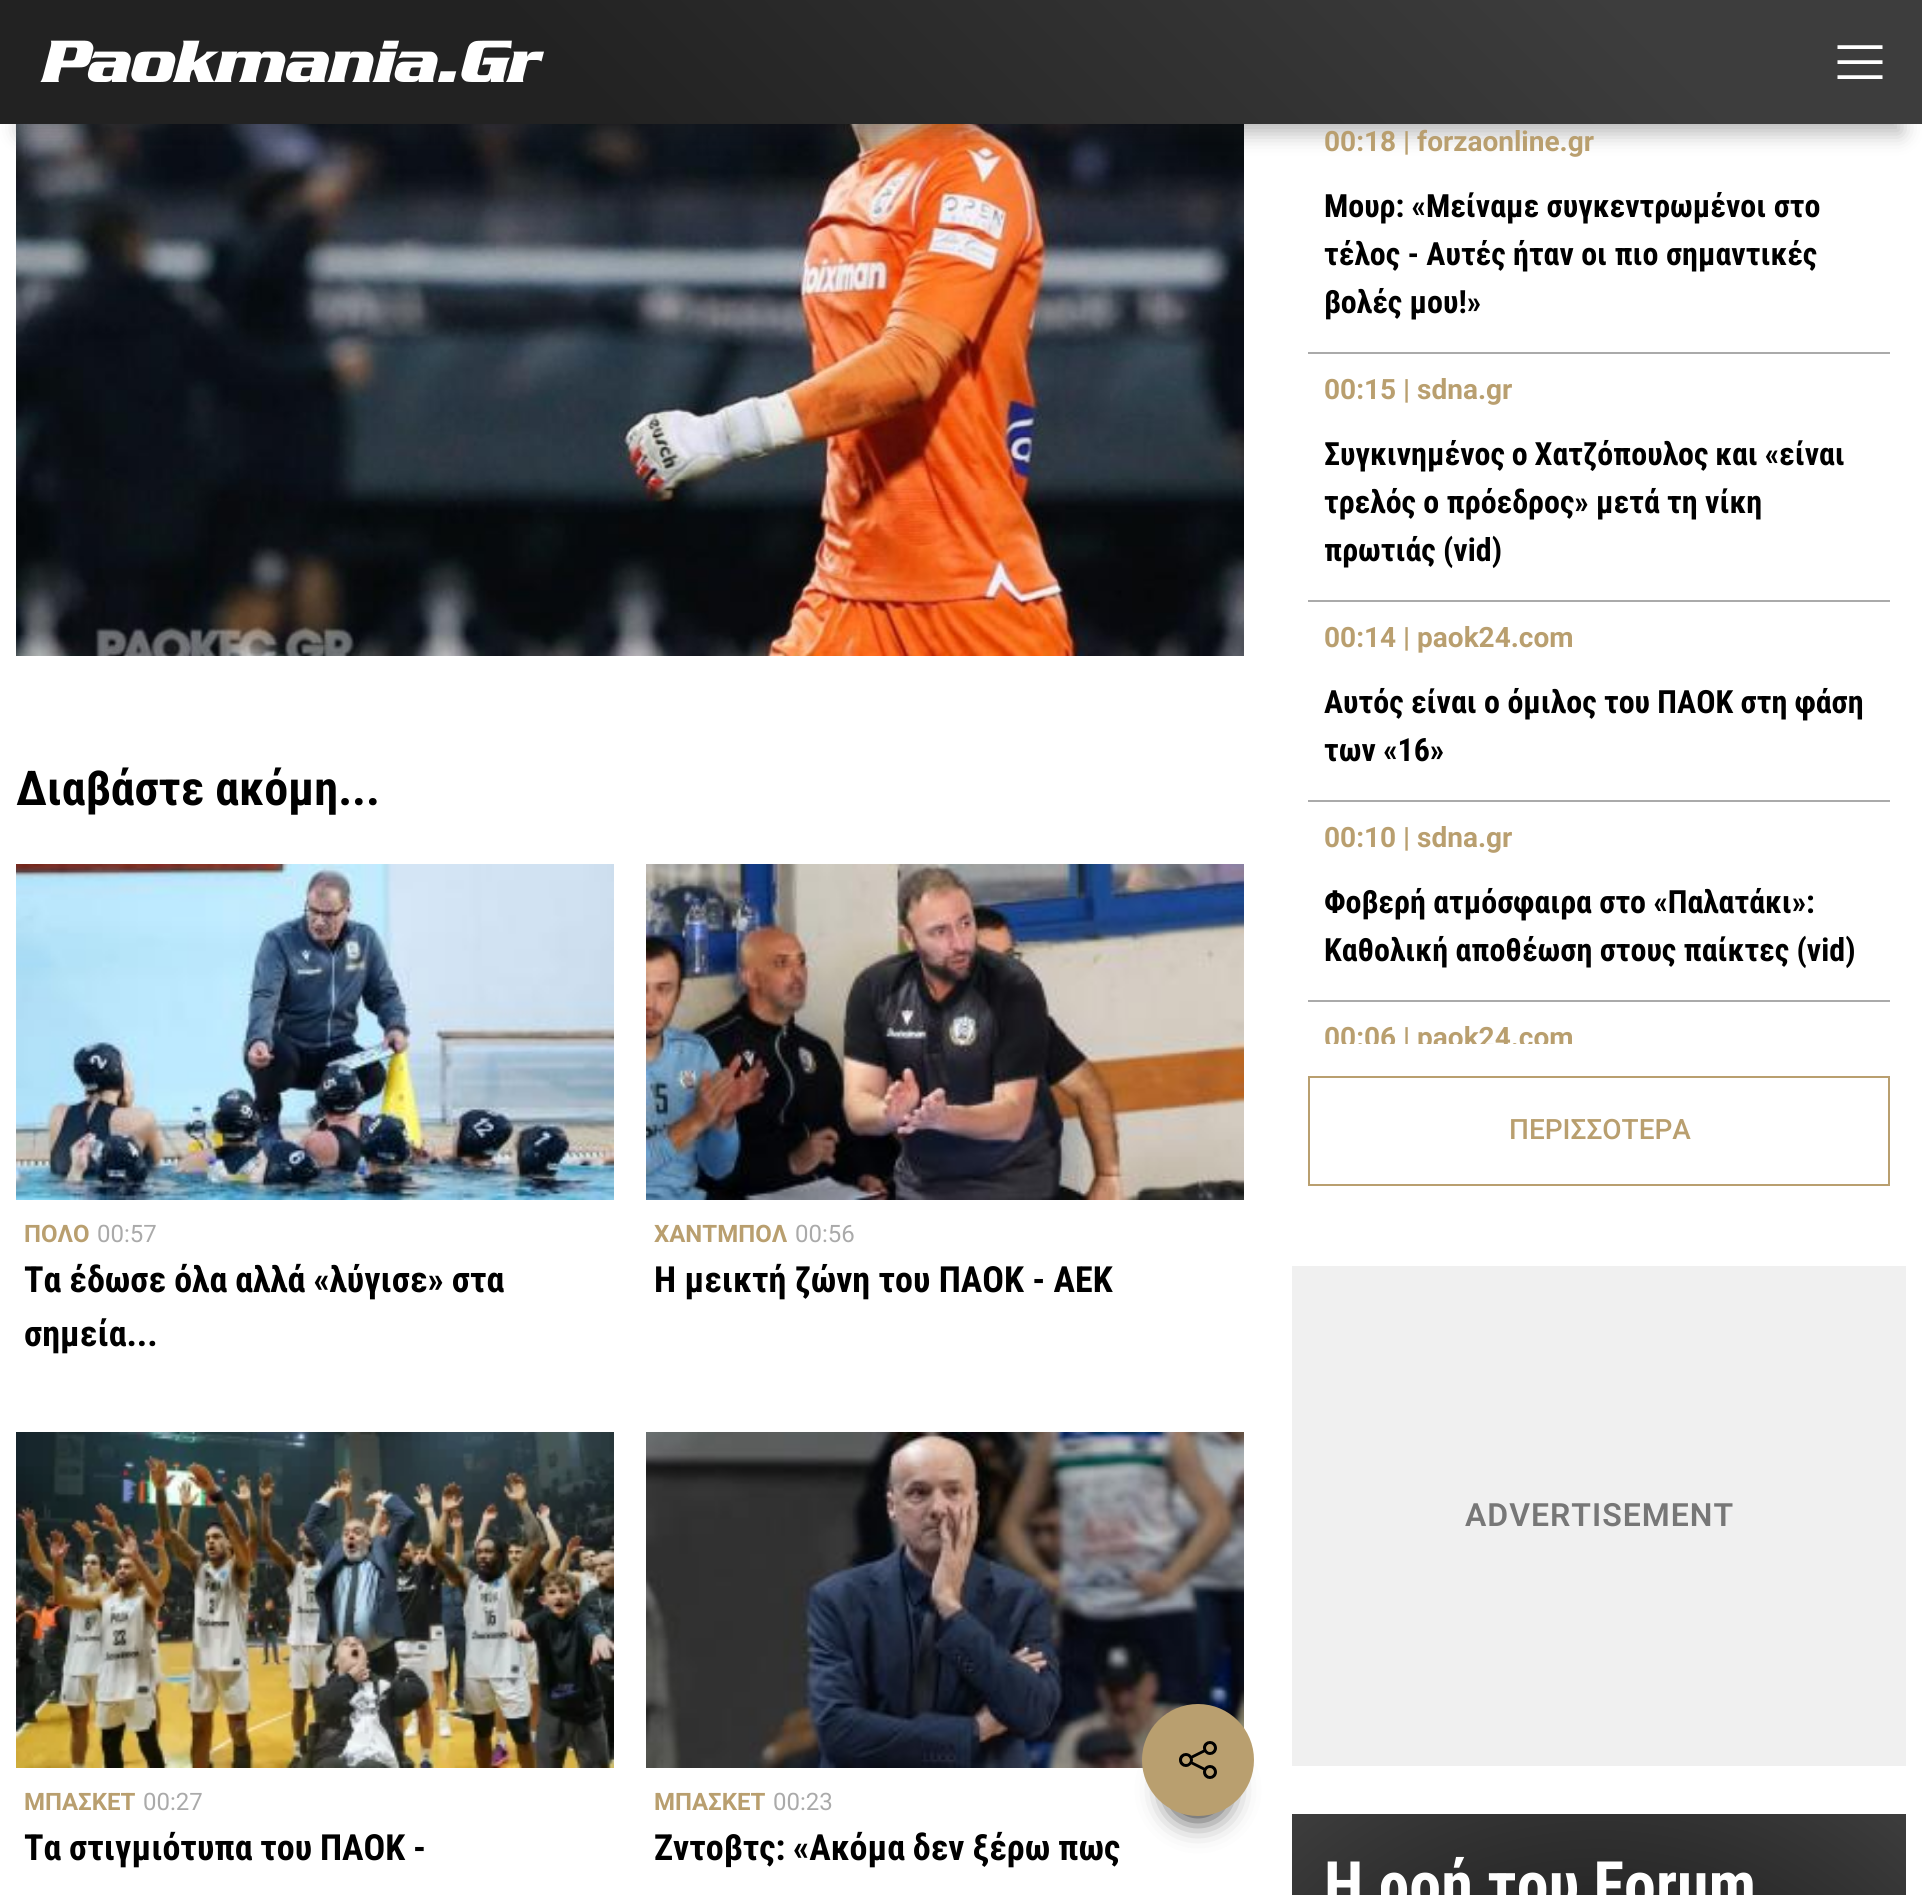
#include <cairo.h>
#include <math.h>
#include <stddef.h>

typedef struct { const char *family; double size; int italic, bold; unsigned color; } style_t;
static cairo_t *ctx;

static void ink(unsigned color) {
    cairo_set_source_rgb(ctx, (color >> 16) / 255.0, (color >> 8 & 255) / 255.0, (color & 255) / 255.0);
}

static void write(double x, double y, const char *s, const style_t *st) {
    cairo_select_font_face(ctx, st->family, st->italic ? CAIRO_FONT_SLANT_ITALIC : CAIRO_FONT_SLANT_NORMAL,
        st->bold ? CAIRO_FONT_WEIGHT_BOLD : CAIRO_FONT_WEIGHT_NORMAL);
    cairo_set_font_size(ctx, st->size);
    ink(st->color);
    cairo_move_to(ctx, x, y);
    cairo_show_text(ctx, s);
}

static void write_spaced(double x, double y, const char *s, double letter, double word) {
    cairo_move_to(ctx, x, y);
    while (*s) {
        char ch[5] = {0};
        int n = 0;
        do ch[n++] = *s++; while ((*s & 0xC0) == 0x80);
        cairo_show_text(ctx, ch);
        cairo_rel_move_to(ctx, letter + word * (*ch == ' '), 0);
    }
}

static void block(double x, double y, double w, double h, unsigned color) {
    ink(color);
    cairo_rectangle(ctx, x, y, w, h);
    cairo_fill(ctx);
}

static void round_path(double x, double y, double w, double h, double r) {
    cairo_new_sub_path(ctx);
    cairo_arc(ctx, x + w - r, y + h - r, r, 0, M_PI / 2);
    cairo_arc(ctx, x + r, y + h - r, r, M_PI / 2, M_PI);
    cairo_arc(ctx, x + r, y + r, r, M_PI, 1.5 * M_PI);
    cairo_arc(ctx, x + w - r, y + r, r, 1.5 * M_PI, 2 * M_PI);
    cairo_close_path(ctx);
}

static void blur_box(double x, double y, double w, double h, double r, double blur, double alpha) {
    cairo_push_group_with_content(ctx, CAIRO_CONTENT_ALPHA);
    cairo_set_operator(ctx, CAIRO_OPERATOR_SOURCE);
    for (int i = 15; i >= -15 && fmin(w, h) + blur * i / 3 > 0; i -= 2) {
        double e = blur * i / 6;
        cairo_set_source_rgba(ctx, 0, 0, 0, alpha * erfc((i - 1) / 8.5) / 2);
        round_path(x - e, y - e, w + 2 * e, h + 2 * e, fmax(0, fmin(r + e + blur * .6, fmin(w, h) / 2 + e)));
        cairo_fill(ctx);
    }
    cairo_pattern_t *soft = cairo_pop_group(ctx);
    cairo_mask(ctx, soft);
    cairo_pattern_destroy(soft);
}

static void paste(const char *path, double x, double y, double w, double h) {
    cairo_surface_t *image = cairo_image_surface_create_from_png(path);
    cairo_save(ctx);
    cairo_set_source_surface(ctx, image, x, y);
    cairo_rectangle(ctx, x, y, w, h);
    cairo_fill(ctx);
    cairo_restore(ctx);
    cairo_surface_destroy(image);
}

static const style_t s1 = {"Roboto Condensed", 48, 0, 1, 0x000000};
static const style_t s2 = {"Roboto", 24, 0, 1, 0xb99f6f};
static const style_t s3 = {"Roboto", 24, 0, 0, 0xaaaaaa};
static const style_t s4 = {"Roboto Condensed", 36, 0, 1, 0x000000};
static const style_t s5 = {"Roboto", 28, 0, 1, 0xb99f6f};
static const style_t s6 = {"Roboto Condensed", 32, 0, 1, 0x000000};
static const style_t s7 = {"Roboto Medium", 28, 0, 0, 0xb99f6f};

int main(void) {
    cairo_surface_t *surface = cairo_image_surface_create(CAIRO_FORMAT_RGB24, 1922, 1895);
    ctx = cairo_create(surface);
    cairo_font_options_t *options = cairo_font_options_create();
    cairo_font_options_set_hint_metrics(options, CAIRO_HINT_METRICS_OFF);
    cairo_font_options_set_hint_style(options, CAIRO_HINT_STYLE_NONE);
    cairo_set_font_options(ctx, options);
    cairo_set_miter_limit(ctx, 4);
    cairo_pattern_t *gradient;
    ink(0xffffff);
    cairo_paint(ctx);
    paste("pic3.png", 16, 124, 1228, 532);
    ink(0x191919);
    blur_box(20, 50, 1882, 84, 0, 10, 0.3);
    gradient = cairo_pattern_create_linear(450, 574, 1473, -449);
    cairo_pattern_add_color_stop_rgba(gradient, 0.3, 0.133, 0.133, 0.133, 1);
    cairo_pattern_add_color_stop_rgba(gradient, 0.85, 0.239, 0.239, 0.239, 1);
    cairo_set_source(ctx, gradient);
    cairo_pattern_destroy(gradient);
    cairo_rectangle(ctx, 0, 0, 1922, 124);
    cairo_fill(ctx);
    paste("pic1.png", 40, 40, 504, 42);
    paste("pic2.png", 1837, 45, 46, 34);
    paste("pic8.png", 646, 1432, 598, 336);
    ink(0x000000);
    blur_box(1172, 1764, 52, 52, 26, 15, 1);
    ink(0xb99f6f);
    cairo_arc(ctx, 1198, 1760, 56, 0, 2 * M_PI);
    cairo_fill(ctx);
    paste("pic4.png", 1179, 1741, 38, 38);
    write(16, 805, "Διαβάστε ακόμη...", &s1);
    paste("pic5.png", 16, 864, 598, 336);
    write(24, 1242, "ΠΟΛΟ", &s2);
    write(97, 1242, "00:57", &s3);
    cairo_select_font_face(ctx, "Roboto Condensed", CAIRO_FONT_SLANT_NORMAL, CAIRO_FONT_WEIGHT_BOLD);
    cairo_set_font_size(ctx, 36);
    ink(0x000000);
    write_spaced(24, 1292, "Τα έδωσε όλα αλλά «λύγισε» στα", 0, -0.25);
    write(24, 1346, "σημεία...", &s4);
    paste("pic6.png", 646, 864, 598, 336);
    write(654, 1242, "ΧΑΝΤΜΠΟΛ", &s2);
    write(795, 1242, "00:56", &s3);
    write(654, 1292, "Η μεικτή ζώνη του ΠΑΟΚ - ΑΕΚ", &s4);
    paste("pic7.png", 16, 1432, 598, 336);
    write(24, 1810, "ΜΠΑΣΚΕΤ", &s2);
    write(143, 1810, "00:27", &s3);
    cairo_select_font_face(ctx, "Roboto Condensed", CAIRO_FONT_SLANT_NORMAL, CAIRO_FONT_WEIGHT_BOLD);
    cairo_set_font_size(ctx, 36);
    ink(0x000000);
    write_spaced(24, 1860, "Τα στιγμιότυπα του ΠΑΟΚ -", 0, -0.5);
    write(654, 1810, "ΜΠΑΣΚΕΤ", &s2);
    write(773, 1810, "00:23", &s3);
    cairo_select_font_face(ctx, "Roboto Condensed", CAIRO_FONT_SLANT_NORMAL, CAIRO_FONT_WEIGHT_BOLD);
    cairo_set_font_size(ctx, 36);
    ink(0x000000);
    write_spaced(654, 1860, "Ζντοβτς: «Ακόμα δεν ξέρω πως", 0, -0.5);
    write(1324, 151, "00:18 | forzaonline.gr", &s5);
    write(1324, 217, "Μουρ: «Μείναμε συγκεντρωμένοι στο", &s6);
    write(1324, 265, "τέλος - Αυτές ήταν οι πιο σημαντικές", &s6);
    write(1324, 313, "βολές μου!»", &s6);
    block(1308, 352, 582, 2, 0xaaaaaa);
    write(1324, 399, "00:15 | sdna.gr", &s5);
    cairo_select_font_face(ctx, "Roboto Condensed", CAIRO_FONT_SLANT_NORMAL, CAIRO_FONT_WEIGHT_BOLD);
    cairo_set_font_size(ctx, 32);
    ink(0x000000);
    write_spaced(1324, 465, "Συγκινημένος ο Χατζόπουλος και «είναι", 0, -0.5);
    write(1324, 513, "τρελός ο πρόεδρος» μετά τη νίκη", &s6);
    write(1324, 561, "πρωτιάς (vid)", &s6);
    block(1308, 600, 582, 2, 0xaaaaaa);
    write(1324, 647, "00:14 | paok24.com", &s5);
    write(1324, 713, "Αυτός είναι ο όμιλος του ΠΑΟΚ στη φάση", &s6);
    write(1324, 761, "των «16»", &s6);
    block(1308, 800, 582, 2, 0xaaaaaa);
    write(1324, 847, "00:10 | sdna.gr", &s5);
    write(1324, 913, "Φοβερή ατμόσφαιρα στο «Παλατάκι»:", &s6);
    write(1324, 961, "Καθολική αποθέωση στους παίκτες (vid)", &s6);
    block(1308, 1000, 582, 2, 0xaaaaaa);
    cairo_save(ctx);
    cairo_rectangle(ctx, 1308, 104, 582, 940);
    cairo_clip(ctx);
    write(1324, 1047, "00:06 | paok24.com", &s5);
    cairo_restore(ctx);
    cairo_rectangle(ctx, 1309, 1077, 580, 108);
    ink(0xb99f6f);
    cairo_stroke(ctx);
    write(1509, 1139, "ΠΕΡΙΣΣΟΤΕΡΑ", &s7);
    block(1292, 1266, 614, 500, 0xf0f0f0);
    cairo_select_font_face(ctx, "Roboto SemiBold", CAIRO_FONT_SLANT_NORMAL, CAIRO_FONT_WEIGHT_NORMAL);
    cairo_set_font_size(ctx, 32);
    ink(0x777777);
    write_spaced(1465, 1526, "ADVERTISEMENT", 1, 0);
    gradient = cairo_pattern_create_radial(1599, 2202, 0, 1599, 2202, 495);
    cairo_pattern_add_color_stop_rgba(gradient, 0.5, 0.133, 0.133, 0.133, 1);
    cairo_pattern_add_color_stop_rgba(gradient, 1, 0.239, 0.239, 0.239, 1);
    cairo_set_source(ctx, gradient);
    cairo_pattern_destroy(gradient);
    cairo_rectangle(ctx, 1292, 1814, 614, 81);
    cairo_fill(ctx);
    cairo_select_font_face(ctx, "Roboto Condensed", CAIRO_FONT_SLANT_NORMAL, CAIRO_FONT_WEIGHT_BOLD);
    cairo_set_font_size(ctx, 64);
    ink(0xffffff);
    write_spaced(1324, 1907, "H ροή του Forum", 0, -0.5);
    cairo_surface_write_to_png(surface, "screenshot.png");
    cairo_font_options_destroy(options);
    cairo_destroy(ctx);
    cairo_surface_destroy(surface);
    return 0;
}
